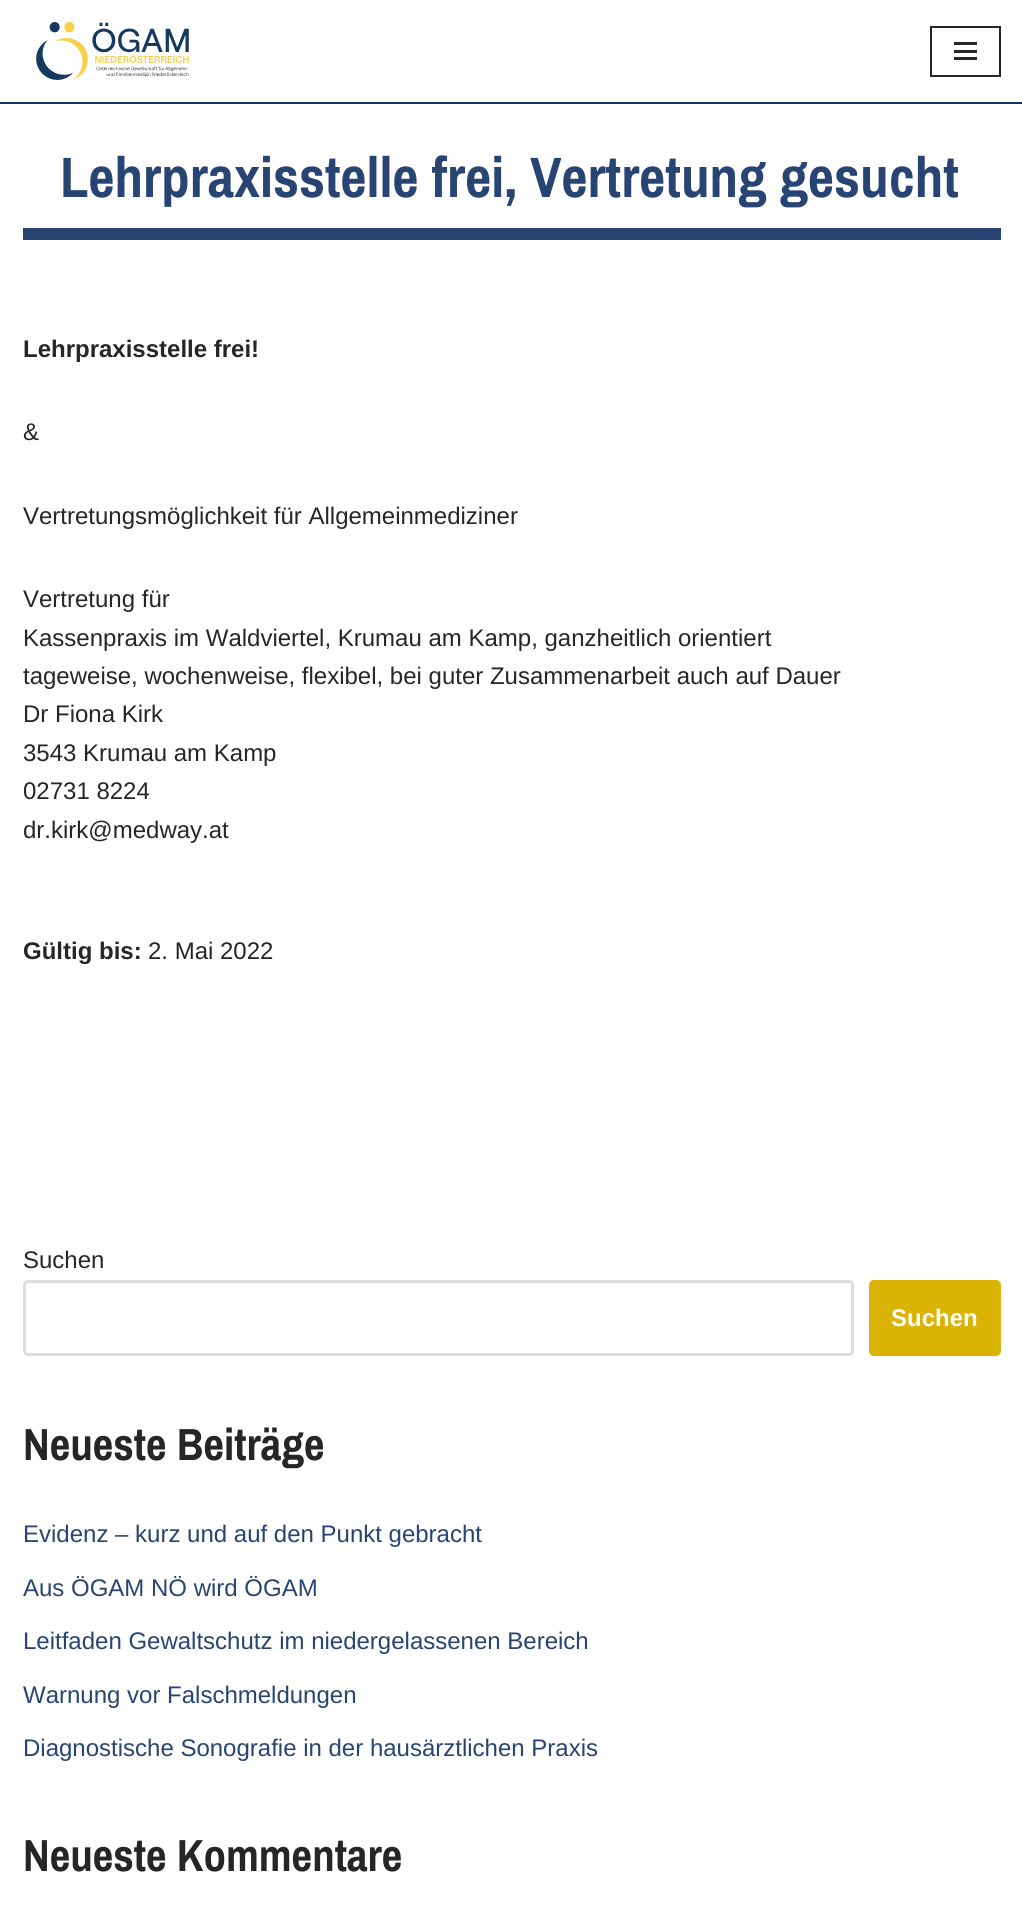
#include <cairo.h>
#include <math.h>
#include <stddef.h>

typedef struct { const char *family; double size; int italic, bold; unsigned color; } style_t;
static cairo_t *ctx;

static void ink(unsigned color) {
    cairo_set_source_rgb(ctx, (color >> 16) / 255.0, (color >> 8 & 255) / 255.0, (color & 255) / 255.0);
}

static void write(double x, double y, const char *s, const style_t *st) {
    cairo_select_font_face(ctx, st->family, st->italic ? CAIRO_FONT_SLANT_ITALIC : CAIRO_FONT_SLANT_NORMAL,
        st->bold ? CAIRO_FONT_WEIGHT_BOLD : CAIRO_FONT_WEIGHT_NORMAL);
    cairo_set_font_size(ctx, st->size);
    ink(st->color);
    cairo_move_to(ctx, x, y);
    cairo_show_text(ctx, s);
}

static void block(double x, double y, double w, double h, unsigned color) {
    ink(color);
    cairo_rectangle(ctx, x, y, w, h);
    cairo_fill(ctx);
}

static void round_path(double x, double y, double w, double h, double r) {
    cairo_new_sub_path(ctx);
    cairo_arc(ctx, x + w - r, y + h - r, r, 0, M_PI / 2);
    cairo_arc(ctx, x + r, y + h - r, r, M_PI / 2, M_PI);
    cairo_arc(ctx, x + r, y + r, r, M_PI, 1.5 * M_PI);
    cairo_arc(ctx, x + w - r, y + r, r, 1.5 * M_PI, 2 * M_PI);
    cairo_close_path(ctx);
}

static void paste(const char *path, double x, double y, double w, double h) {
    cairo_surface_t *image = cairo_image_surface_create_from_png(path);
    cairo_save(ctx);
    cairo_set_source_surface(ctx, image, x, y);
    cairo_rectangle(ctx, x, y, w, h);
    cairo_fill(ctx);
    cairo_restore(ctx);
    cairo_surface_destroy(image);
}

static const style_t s1 = {"Archivo Narrow", 57, 0, 1, 0x274472};
static const style_t s2 = {"Liberation Sans", 24, 0, 1, 0x272626};
static const style_t s3 = {"Liberation Sans", 24, 0, 0, 0x272626};
static const style_t s4 = {"Liberation Sans", 24, 0, 1, 0xffffff};
static const style_t s5 = {"Archivo Narrow", 45, 0, 1, 0x272626};
static const style_t s6 = {"Liberation Sans", 24, 0, 0, 0x274472};

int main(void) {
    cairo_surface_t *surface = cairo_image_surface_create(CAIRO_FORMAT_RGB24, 1022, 1915);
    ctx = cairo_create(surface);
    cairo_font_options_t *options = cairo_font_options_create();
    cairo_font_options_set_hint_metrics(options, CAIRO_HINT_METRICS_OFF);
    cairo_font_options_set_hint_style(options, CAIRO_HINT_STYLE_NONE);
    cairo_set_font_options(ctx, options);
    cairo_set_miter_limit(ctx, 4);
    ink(0xffffff);
    cairo_paint(ctx);
    block(0, 102, 1022, 2, 0x0d3861);
    paste("pic1.png", 36, 22, 153, 58);
    cairo_rectangle(ctx, 931, 27, 69, 49);
    ink(0x272626);
    cairo_stroke(ctx);
    block(954, 42, 23, 3, 0x272626);
    block(954, 50, 23, 3, 0x272626);
    block(954, 57, 23, 3, 0x272626);
    block(23, 228, 978, 12, 0x274472);
    write(60, 197, "Lehrpraxisstelle frei, Vertretung gesucht", &s1);
    write(23, 357, "Lehrpraxisstelle frei!", &s2);
    write(23, 440, "&", &s3);
    write(23, 524, "Vertretungsmöglichkeit für Allgemeinmediziner", &s3);
    write(23, 607, "Vertretung für", &s3);
    write(23, 646, "Kassenpraxis im Waldviertel, Krumau am Kamp, ganzheitlich orientiert", &s3);
    write(23, 684, "tageweise, wochenweise, flexibel, bei guter Zusammenarbeit auch auf Dauer", &s3);
    write(23, 722, "Dr Fiona Kirk", &s3);
    write(23, 761, "3543 Krumau am Kamp", &s3);
    write(23, 799, "02731 8224", &s3);
    write(23, 838, "dr.kirk@medway.at", &s3);
    write(23, 959, "Gültig bis:", &s2);
    write(148, 959, "2. Mai 2022", &s3);
    write(23, 1268, "Suchen", &s3);
    round_path(24.5, 1281.5, 828, 73, 3.5);
    ink(0xdddddd);
    cairo_set_line_width(ctx, 3);
    cairo_stroke(ctx);
    ink(0xdbb304);
    round_path(869, 1280, 132, 76, 5);
    cairo_fill(ctx);
    write(891, 1326, "Suchen", &s4);
    write(23, 1460, "Neueste Beiträge", &s5);
    write(23, 1542, "Evidenz – kurz und auf den Punkt gebracht", &s6);
    write(23, 1596, "Aus ÖGAM NÖ wird ÖGAM", &s6);
    write(23, 1649, "Leitfaden Gewaltschutz im niedergelassenen Bereich", &s6);
    write(23, 1703, "Warnung vor Falschmeldungen", &s6);
    write(23, 1756, "Diagnostische Sonografie in der hausärztlichen Praxis", &s6);
    write(23, 1871, "Neueste Kommentare", &s5);
    cairo_surface_write_to_png(surface, "screenshot.png");
    cairo_font_options_destroy(options);
    cairo_destroy(ctx);
    cairo_surface_destroy(surface);
    return 0;
}
